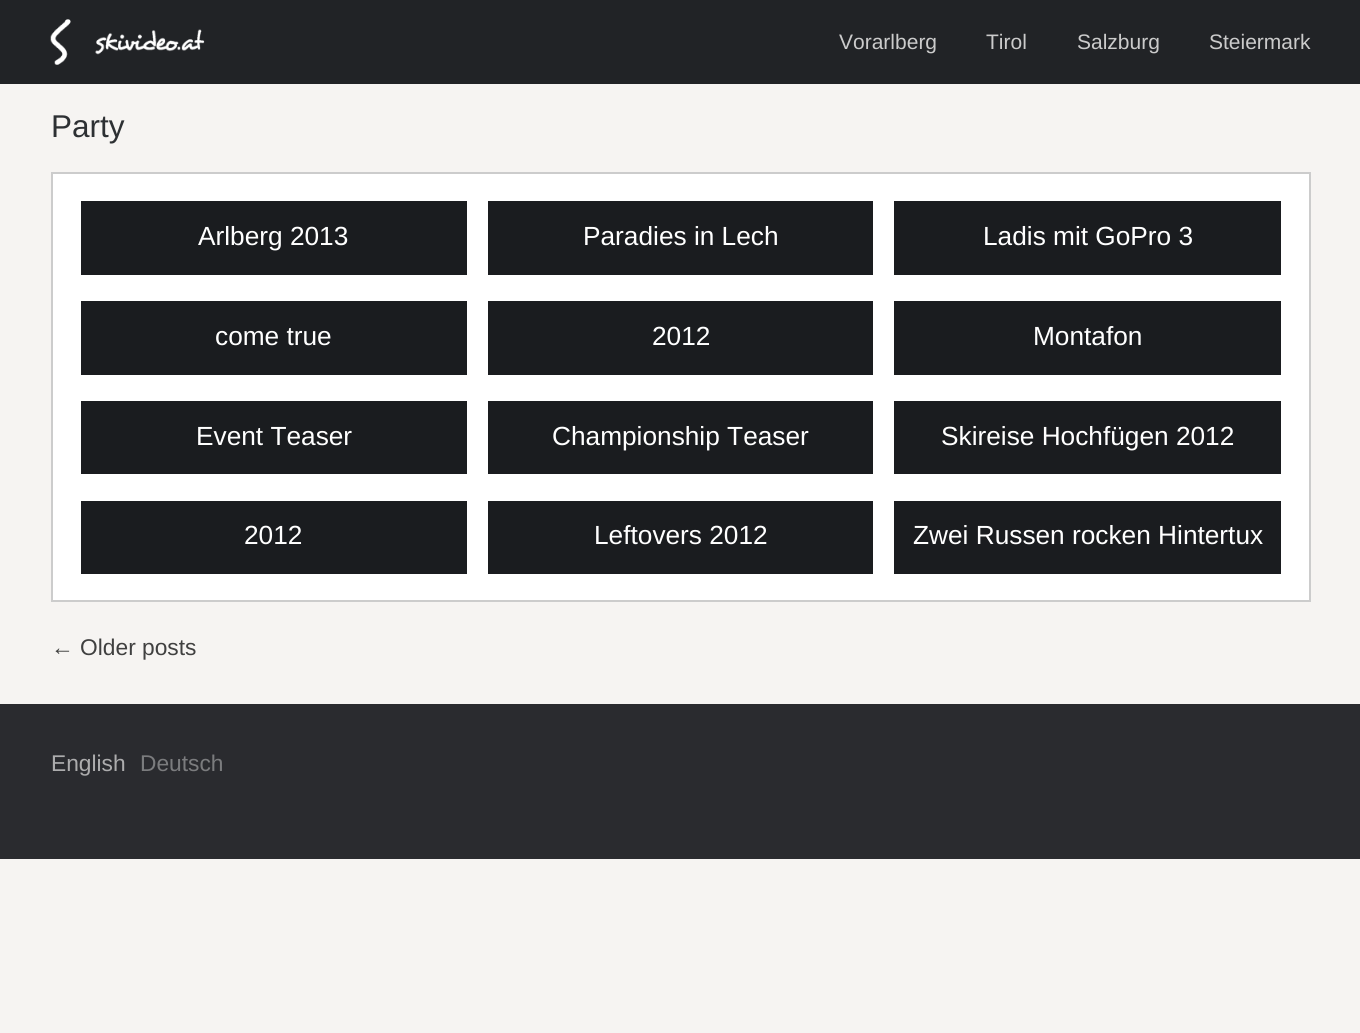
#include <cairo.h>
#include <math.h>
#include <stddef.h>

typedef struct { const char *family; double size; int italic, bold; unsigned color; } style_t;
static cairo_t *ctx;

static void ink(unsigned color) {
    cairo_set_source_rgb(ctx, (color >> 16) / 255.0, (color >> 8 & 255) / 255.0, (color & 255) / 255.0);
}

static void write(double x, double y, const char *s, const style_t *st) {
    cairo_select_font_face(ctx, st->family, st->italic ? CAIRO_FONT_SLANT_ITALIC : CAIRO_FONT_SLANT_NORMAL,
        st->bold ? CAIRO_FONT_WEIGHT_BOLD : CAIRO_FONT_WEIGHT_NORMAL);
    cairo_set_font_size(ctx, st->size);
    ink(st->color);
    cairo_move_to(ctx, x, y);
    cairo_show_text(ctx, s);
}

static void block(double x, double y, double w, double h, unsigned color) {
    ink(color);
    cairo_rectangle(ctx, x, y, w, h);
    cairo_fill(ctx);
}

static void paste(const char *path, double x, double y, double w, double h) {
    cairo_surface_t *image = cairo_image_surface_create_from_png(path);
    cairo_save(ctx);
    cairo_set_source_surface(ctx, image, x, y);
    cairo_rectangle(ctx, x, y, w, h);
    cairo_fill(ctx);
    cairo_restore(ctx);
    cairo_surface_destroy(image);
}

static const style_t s1 = {"Liberation Sans", 21, 0, 0, 0xcbcbcb};
static const style_t s2 = {"Liberation Sans", 31.5, 0, 0, 0x2d3033};
static const style_t s3 = {"Liberation Sans", 26.25, 0, 0, 0xffffff};
static const style_t s4 = {"Liberation Sans", 22.75, 0, 0, 0x404040};
static const style_t s5 = {"Liberation Sans", 22.75, 0, 0, 0xacacad};
static const style_t s6 = {"Liberation Sans", 22.75, 0, 0, 0x7b7c7e};

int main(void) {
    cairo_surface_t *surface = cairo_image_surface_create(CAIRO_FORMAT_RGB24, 1360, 1033);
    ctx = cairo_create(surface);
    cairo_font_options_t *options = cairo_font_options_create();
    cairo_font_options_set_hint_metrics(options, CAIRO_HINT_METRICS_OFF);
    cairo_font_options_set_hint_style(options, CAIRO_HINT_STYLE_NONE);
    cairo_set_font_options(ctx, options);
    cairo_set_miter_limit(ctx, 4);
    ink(0xf6f4f2);
    cairo_paint(ctx);
    block(0, 0, 1360, 84, 0x212326);
    paste("pic1.png", 50, 19, 155, 46);
    write(839, 49, "Vorarlberg", &s1);
    write(986, 49, "Tirol", &s1);
    write(1077, 49, "Salzburg", &s1);
    write(1209, 49, "Steiermark", &s1);
    write(51, 137, "Party", &s2);
    ink(0xffffff);
    cairo_rectangle(ctx, 52, 173, 1258, 428);
    cairo_fill_preserve(ctx);
    ink(0xcccccc);
    cairo_stroke(ctx);
    block(81, 201, 386, 74, 0x1a1c1f);
    write(198, 245, "Arlberg 2013", &s3);
    block(488, 201, 385, 74, 0x1a1c1f);
    write(583, 245, "Paradies in Lech", &s3);
    block(894, 201, 387, 74, 0x1a1c1f);
    write(983, 245, "Ladis mit GoPro 3", &s3);
    block(81, 301, 386, 74, 0x1a1c1f);
    write(215, 345, "come true", &s3);
    block(488, 301, 385, 74, 0x1a1c1f);
    write(652, 345, "2012", &s3);
    block(894, 301, 387, 74, 0x1a1c1f);
    write(1033, 345, "Montafon", &s3);
    block(81, 401, 386, 73, 0x1a1c1f);
    write(196, 445, "Event Teaser", &s3);
    block(488, 401, 385, 73, 0x1a1c1f);
    write(552, 445, "Championship Teaser", &s3);
    block(894, 401, 387, 73, 0x1a1c1f);
    write(941, 445, "Skireise Hochfügen 2012", &s3);
    block(81, 501, 386, 73, 0x1a1c1f);
    write(244, 544, "2012", &s3);
    block(488, 501, 385, 73, 0x1a1c1f);
    write(594, 544, "Leftovers 2012", &s3);
    block(894, 501, 387, 73, 0x1a1c1f);
    write(913, 544, "Zwei Russen rocken Hintertux", &s3);
    write(51, 655, "← Older posts", &s4);
    block(0, 704, 1360, 155, 0x2a2b2f);
    write(51, 771, "English", &s5);
    write(140, 771, "Deutsch", &s6);
    cairo_surface_write_to_png(surface, "screenshot.png");
    cairo_font_options_destroy(options);
    cairo_destroy(ctx);
    cairo_surface_destroy(surface);
    return 0;
}
